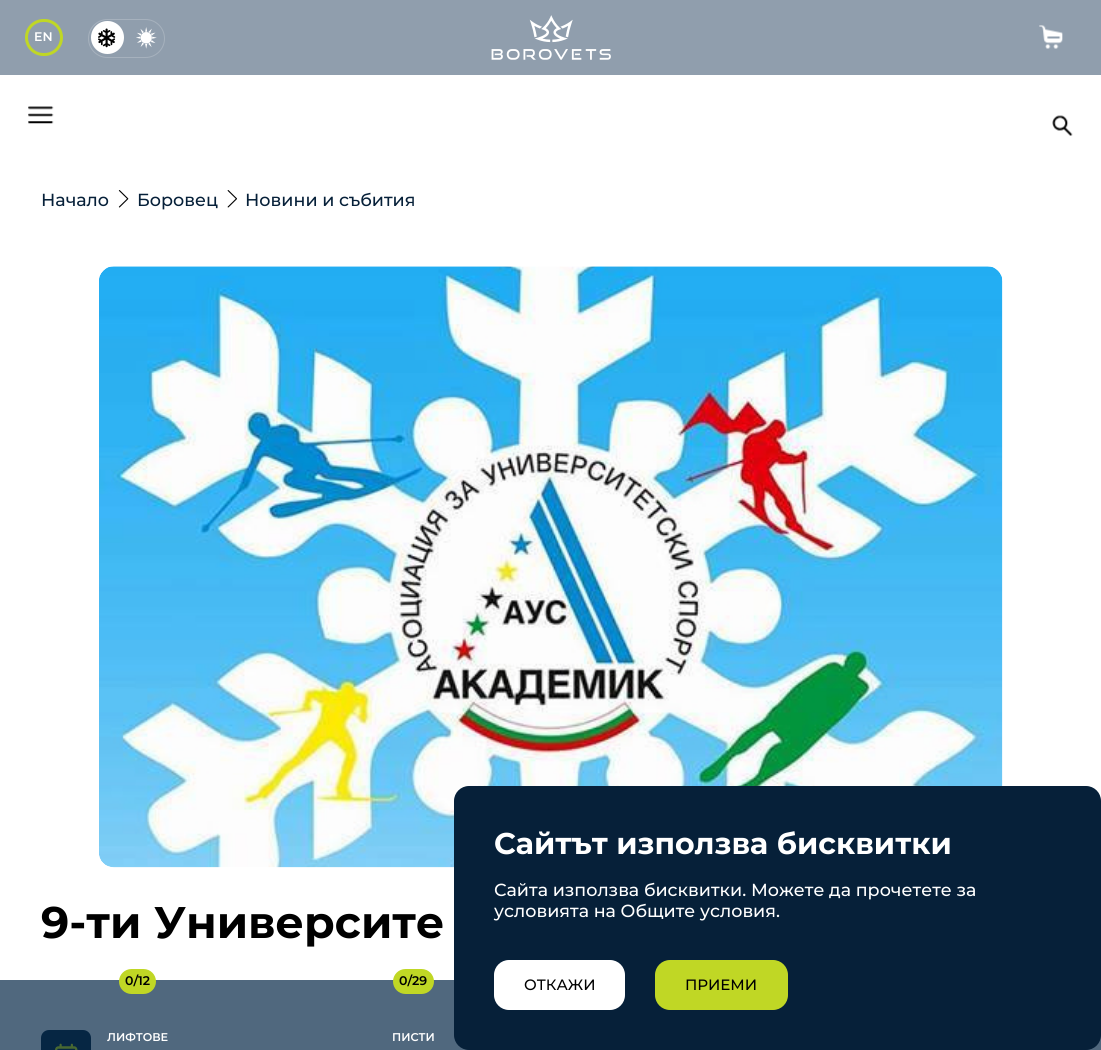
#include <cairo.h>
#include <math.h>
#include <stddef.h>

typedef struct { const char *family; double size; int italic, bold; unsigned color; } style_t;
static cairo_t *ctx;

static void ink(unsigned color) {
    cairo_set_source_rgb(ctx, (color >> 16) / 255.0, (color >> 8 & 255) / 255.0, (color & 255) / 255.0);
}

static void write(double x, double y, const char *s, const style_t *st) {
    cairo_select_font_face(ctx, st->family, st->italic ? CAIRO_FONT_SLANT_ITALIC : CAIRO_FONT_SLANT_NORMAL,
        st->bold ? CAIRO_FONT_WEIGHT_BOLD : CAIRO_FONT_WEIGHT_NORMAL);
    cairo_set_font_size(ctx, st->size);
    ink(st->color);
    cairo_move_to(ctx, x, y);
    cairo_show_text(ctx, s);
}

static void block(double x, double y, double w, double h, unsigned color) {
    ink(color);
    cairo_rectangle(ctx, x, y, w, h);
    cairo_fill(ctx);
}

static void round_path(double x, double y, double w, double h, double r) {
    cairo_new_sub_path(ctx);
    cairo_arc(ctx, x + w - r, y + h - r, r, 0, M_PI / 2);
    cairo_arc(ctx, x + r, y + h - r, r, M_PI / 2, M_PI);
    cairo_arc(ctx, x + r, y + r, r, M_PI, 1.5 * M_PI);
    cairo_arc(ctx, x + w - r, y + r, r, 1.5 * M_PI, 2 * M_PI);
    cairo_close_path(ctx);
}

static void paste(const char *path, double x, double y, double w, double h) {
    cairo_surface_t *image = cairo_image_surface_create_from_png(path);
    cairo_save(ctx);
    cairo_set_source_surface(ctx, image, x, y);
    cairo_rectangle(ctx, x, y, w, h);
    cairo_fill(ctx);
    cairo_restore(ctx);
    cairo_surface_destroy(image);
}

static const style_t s1 = {"Montserrat SemiBold", 12.5, 0, 0, 0xffffff};
static const style_t s2 = {"Montserrat Medium", 17.5, 0, 0, 0x062039};
static const style_t s3 = {"Montserrat", 44.25, 0, 1, 0x000000};
static const style_t s4 = {"Montserrat", 30, 0, 1, 0xffffff};
static const style_t s5 = {"Montserrat Medium", 17.5, 0, 0, 0xffffff};
static const style_t s6 = {"Montserrat Medium", 15, 0, 0, 0x000000};
static const style_t s7 = {"Montserrat SemiBold", 12.5, 0, 0, 0x000000};
static const style_t s8 = {"Montserrat SemiBold", 11.25, 0, 0, 0xffffff};

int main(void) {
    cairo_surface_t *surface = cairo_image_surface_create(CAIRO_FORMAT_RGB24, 1101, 1050);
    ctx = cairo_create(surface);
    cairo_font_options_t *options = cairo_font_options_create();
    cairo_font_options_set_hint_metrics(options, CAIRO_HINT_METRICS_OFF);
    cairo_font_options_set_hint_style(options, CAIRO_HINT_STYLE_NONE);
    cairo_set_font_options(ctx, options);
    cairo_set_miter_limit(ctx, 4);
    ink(0xffffff);
    cairo_paint(ctx);
    block(0, 0, 1101, 75, 0x909ead);
    round_path(26.5, 20.5, 35, 34, 17);
    ink(0xc0d725);
    cairo_set_line_width(ctx, 3);
    cairo_stroke(ctx);
    write(34, 41, "EN", &s1);
    round_path(88.5, 19.5, 76, 38, 19);
    ink(0xa6b1bd);
    cairo_set_line_width(ctx, 1);
    cairo_stroke(ctx);
    ink(0xffffff);
    cairo_arc(ctx, 107.5, 37.5, 16.5, 0, 2 * M_PI);
    cairo_fill(ctx);
    paste("pic1.png", 136, 27, 21, 22);
    paste("pic2.png", 98, 28, 18, 20);
    paste("pic3.png", 491, 15, 120, 45);
    paste("pic4.png", 1039, 25, 24, 24);
    paste("pic5.png", 1052, 115, 21, 21);
    paste("pic6.png", 28, 106, 26, 18);
    write(41, 206, "Начало", &s2);
    paste("pic7.png", 118, 190, 11, 18);
    write(137, 206, "Боровец", &s2);
    paste("pic8.png", 227, 190, 10, 18);
    write(245, 206, "Новини и събития", &s2);
    paste("pic9.png", 99, 266, 904, 602);
    write(41, 938, "9-ти Университе", &s3);
    ink(0x062039);
    round_path(41, 1030, 50, 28, 8);
    cairo_fill(ctx);
    paste("pic10.png", 55, 1043, 23, 7);
    cairo_set_source_rgba(ctx, 0.027, 0.157, 0.282, 0.7);
    cairo_rectangle(ctx, 0, 980, 1101, 70);
    cairo_fill(ctx);
    ink(0x062039);
    round_path(454, 786, 647, 264, 15);
    cairo_fill(ctx);
    write(494, 854, "Сайтът използва бисквитки", &s4);
    write(494, 896, "Сайта използва бисквитки. Можете да прочетете за", &s5);
    write(494, 917, "условията на Общите условия.", &s5);
    round_path(494, 960, 131, 50, 15);
    cairo_fill(ctx);
    write(524, 990, "ОТКАЖИ", &s6);
    ink(0xc0d725);
    round_path(655, 960, 133, 50, 15);
    cairo_fill(ctx);
    write(685, 990, "ПРИЕМИ", &s6);
    ink(0xc0d725);
    round_path(119, 969, 37, 25, 12.5);
    cairo_fill(ctx);
    write(125, 985, "0/12", &s7);
    write(107, 1041, "ЛИФТОВЕ", &s8);
    ink(0xc0d725);
    round_path(393, 969, 41, 25, 12.5);
    cairo_fill(ctx);
    write(399, 985, "0/29", &s7);
    write(392, 1041, "ПИСТИ", &s8);
    cairo_surface_write_to_png(surface, "screenshot.png");
    cairo_font_options_destroy(options);
    cairo_destroy(ctx);
    cairo_surface_destroy(surface);
    return 0;
}
